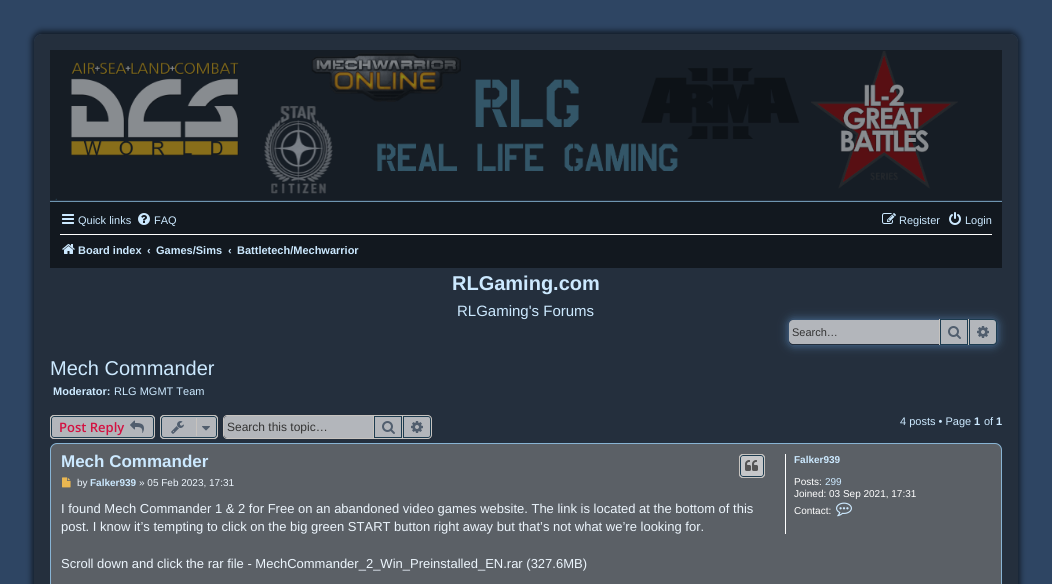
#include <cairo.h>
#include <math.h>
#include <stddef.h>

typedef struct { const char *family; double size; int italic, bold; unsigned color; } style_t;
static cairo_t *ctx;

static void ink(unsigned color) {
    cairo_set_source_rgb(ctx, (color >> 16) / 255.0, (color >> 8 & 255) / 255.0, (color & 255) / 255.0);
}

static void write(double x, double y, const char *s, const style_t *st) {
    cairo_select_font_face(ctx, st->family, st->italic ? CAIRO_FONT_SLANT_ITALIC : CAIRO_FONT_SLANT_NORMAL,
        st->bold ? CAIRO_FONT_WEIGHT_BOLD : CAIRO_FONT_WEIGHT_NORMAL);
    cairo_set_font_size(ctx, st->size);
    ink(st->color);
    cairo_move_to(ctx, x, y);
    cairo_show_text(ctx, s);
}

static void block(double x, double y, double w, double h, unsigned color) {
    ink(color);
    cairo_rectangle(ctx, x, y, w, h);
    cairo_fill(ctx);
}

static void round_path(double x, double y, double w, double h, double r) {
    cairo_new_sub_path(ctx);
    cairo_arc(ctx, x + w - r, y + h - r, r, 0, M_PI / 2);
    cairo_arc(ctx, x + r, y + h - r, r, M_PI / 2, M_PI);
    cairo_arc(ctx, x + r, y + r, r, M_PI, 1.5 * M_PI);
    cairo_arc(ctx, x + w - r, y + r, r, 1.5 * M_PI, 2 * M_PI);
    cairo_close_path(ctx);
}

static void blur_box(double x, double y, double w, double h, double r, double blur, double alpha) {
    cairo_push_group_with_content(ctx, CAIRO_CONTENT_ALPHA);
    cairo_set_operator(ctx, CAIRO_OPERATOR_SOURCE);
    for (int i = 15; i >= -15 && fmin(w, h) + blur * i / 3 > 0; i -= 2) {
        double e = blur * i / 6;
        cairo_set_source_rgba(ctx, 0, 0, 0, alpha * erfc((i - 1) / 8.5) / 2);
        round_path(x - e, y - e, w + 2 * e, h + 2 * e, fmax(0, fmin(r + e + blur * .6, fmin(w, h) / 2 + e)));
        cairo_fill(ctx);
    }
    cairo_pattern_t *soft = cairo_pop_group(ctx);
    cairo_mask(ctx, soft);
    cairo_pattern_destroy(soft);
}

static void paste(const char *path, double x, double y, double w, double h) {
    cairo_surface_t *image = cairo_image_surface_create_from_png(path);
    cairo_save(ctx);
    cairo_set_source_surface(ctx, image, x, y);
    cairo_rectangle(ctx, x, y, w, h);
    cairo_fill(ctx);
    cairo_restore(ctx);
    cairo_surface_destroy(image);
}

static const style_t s1 = {"Liberation Sans", 11, 0, 0, 0xcce9ff};
static const style_t s2 = {"Liberation Sans", 11, 0, 1, 0xcce9ff};
static const style_t s3 = {"Liberation Sans", 20, 0, 1, 0xcce9ff};
static const style_t s4 = {"Liberation Sans", 15, 0, 0, 0xcce9ff};
static const style_t s5 = {"Liberation Sans", 11, 0, 0, 0x333333};
static const style_t s6 = {"Liberation Sans", 20, 0, 0, 0xcce9ff};
static const style_t s7 = {"Open Sans SemiBold", 13, 0, 0, 0xd31141};
static const style_t s8 = {"Liberation Sans", 12, 0, 0, 0x333333};
static const style_t s9 = {"Liberation Sans", 17, 0, 1, 0xcce9ff};
static const style_t s10 = {"Liberation Sans", 10, 0, 0, 0xecf5fd};
static const style_t s11 = {"Liberation Sans", 10, 0, 1, 0xcce9ff};
static const style_t s12 = {"Liberation Sans", 13, 0, 0, 0xecf5fd};
static const style_t s13 = {"Liberation Sans", 10, 0, 0, 0xffffff};
static const style_t s14 = {"Liberation Sans", 10, 0, 0, 0xcce9ff};

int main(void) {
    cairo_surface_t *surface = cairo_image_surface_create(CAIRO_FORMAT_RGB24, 1052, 584);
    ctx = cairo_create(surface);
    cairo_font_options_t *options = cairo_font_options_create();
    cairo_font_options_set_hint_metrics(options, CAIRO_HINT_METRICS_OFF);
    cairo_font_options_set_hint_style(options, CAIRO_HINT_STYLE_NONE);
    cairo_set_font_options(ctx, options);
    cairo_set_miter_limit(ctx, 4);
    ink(0x2e4563);
    cairo_paint(ctx);
    cairo_save(ctx);
    cairo_set_fill_rule(ctx, CAIRO_FILL_RULE_EVEN_ODD);
    cairo_new_path(ctx);
    cairo_move_to(ctx, 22, 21);
    cairo_line_to(ctx, 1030, 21);
    cairo_line_to(ctx, 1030, 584);
    cairo_line_to(ctx, 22, 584);
    cairo_close_path(ctx);
    cairo_move_to(ctx, 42, 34);
    cairo_line_to(ctx, 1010, 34);
    cairo_curve_to(ctx, 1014.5, 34, 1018, 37.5, 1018, 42);
    cairo_line_to(ctx, 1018, 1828);
    cairo_curve_to(ctx, 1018, 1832.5, 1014.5, 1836, 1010, 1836);
    cairo_line_to(ctx, 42, 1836);
    cairo_curve_to(ctx, 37.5, 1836, 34, 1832.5, 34, 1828);
    cairo_line_to(ctx, 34, 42);
    cairo_curve_to(ctx, 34, 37.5, 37.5, 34, 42, 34);
    cairo_close_path(ctx);
    cairo_clip(ctx);
    ink(0x000000);
    blur_box(32, 31, 988, 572, 10, 3, 0.62);
    cairo_restore(ctx);
    cairo_set_source_rgba(ctx, 0.11, 0.11, 0.11, 0.52);
    round_path(34, 34, 984, 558, 8);
    cairo_fill(ctx);
    block(50, 50, 952, 150, 0x161d25);
    paste("pic1.png", 55, 51, 903, 149);
    block(50, 202, 952, 66, 0x12181f);
    block(50, 201, 952, 1, 0x6f95b0);
    paste("pic2.png", 62, 214, 12, 10);
    write(78, 224, "Quick links", &s1);
    paste("pic3.png", 138, 213, 12, 12);
    write(154, 224, "FAQ", &s1);
    paste("pic4.png", 882, 213, 14, 11);
    write(899, 224, "Register", &s1);
    paste("pic5.png", 949, 212, 12, 13);
    write(965, 224, "Login", &s1);
    block(60, 234, 932, 1, 0xffffff);
    paste("pic6.png", 62, 244, 13, 10);
    write(78, 254, "Board index", &s2);
    write(147, 254, "‹", &s2);
    write(156, 254, "Games/Sims", &s2);
    write(228, 254, "‹", &s2);
    write(237, 254, "Battletech/Mechwarrior", &s2);
    write(452, 290, "RLGaming.com", &s3);
    write(457, 316, "RLGaming's Forums", &s4);
    cairo_save(ctx);
    cairo_set_fill_rule(ctx, CAIRO_FILL_RULE_EVEN_ODD);
    cairo_new_path(ctx);
    cairo_move_to(ctx, 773, 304);
    cairo_line_to(ctx, 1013, 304);
    cairo_line_to(ctx, 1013, 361);
    cairo_line_to(ctx, 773, 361);
    cairo_close_path(ctx);
    cairo_move_to(ctx, 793, 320);
    cairo_line_to(ctx, 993, 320);
    cairo_curve_to(ctx, 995, 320, 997, 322, 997, 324);
    cairo_line_to(ctx, 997, 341);
    cairo_curve_to(ctx, 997, 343, 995, 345, 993, 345);
    cairo_line_to(ctx, 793, 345);
    cairo_curve_to(ctx, 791, 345, 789, 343, 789, 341);
    cairo_line_to(ctx, 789, 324);
    cairo_curve_to(ctx, 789, 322, 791, 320, 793, 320);
    cairo_close_path(ctx);
    cairo_clip(ctx);
    ink(0x4e78a5);
    blur_box(789, 320, 208, 25, 4, 5, 1);
    cairo_restore(ctx);
    cairo_set_source_rgba(ctx, 1, 1, 1, 0.65);
    cairo_new_path(ctx);
    cairo_move_to(ctx, 793, 320);
    cairo_line_to(ctx, 939, 320);
    cairo_line_to(ctx, 939, 344);
    cairo_line_to(ctx, 793, 344);
    cairo_curve_to(ctx, 791, 344, 789, 342, 789, 340);
    cairo_line_to(ctx, 789, 324);
    cairo_curve_to(ctx, 789, 322, 791, 320, 793, 320);
    cairo_close_path(ctx);
    cairo_fill(ctx);
    write(792, 336, "Search…", &s5);
    cairo_set_source_rgba(ctx, 1, 1, 1, 0.65);
    cairo_rectangle(ctx, 940.5, 319.5, 27, 25);
    cairo_fill_preserve(ctx);
    ink(0x1d3c50);
    cairo_set_line_width(ctx, 1);
    cairo_stroke(ctx);
    block(968, 319, 1, 26, 0xc7c3bf);
    block(939, 319, 1, 26, 0xc7c3bf);
    paste("pic7.png", 948, 326, 13, 13);
    cairo_set_source_rgba(ctx, 1, 1, 1, 0.65);
    cairo_new_path(ctx);
    cairo_move_to(ctx, 969.5, 319.5);
    cairo_line_to(ctx, 993, 319.5);
    cairo_curve_to(ctx, 995, 319.5, 996.5, 321, 996.5, 323);
    cairo_line_to(ctx, 996.5, 341);
    cairo_curve_to(ctx, 996.5, 343, 995, 344.5, 993, 344.5);
    cairo_line_to(ctx, 969.5, 344.5);
    cairo_close_path(ctx);
    cairo_fill_preserve(ctx);
    ink(0x1d3c50);
    cairo_stroke(ctx);
    paste("pic8.png", 977, 326, 12, 12);
    write(50, 375, "Mech Commander", &s6);
    write(53, 395, "Moderator:", &s2);
    write(114, 395, "RLG MGMT Team", &s1);
    ink(0xb3b6bb);
    round_path(50, 415, 105, 24, 4);
    cairo_fill(ctx);
    round_path(51.5, 416.5, 102, 21, 2.5);
    ink(0x1d3c50);
    cairo_stroke(ctx);
    round_path(50.5, 415.5, 104, 23, 3.5);
    ink(0xc7c3bf);
    cairo_stroke(ctx);
    write(59, 432, "Post Reply", &s7);
    paste("pic9.png", 130, 420, 14, 13);
    ink(0xb3b6bb);
    round_path(160, 415, 58, 24, 4);
    cairo_fill(ctx);
    round_path(161.5, 416.5, 55, 21, 2.5);
    ink(0x1d3c50);
    cairo_stroke(ctx);
    round_path(160.5, 415.5, 57, 23, 3.5);
    ink(0xc7c3bf);
    cairo_stroke(ctx);
    paste("pic10.png", 171, 421, 13, 13);
    block(196, 418, 1, 18, 0xc7c3bf);
    paste("pic11.png", 202, 426, 8, 5);
    ink(0xb3b6bb);
    cairo_new_path(ctx);
    cairo_move_to(ctx, 227, 416);
    cairo_line_to(ctx, 373, 416);
    cairo_line_to(ctx, 373, 438);
    cairo_line_to(ctx, 227, 438);
    cairo_curve_to(ctx, 225.5, 438, 224, 436.5, 224, 435);
    cairo_line_to(ctx, 224, 419);
    cairo_curve_to(ctx, 224, 417.5, 225.5, 416, 227, 416);
    cairo_close_path(ctx);
    cairo_fill(ctx);
    ink(0xc7c3bf);
    cairo_set_fill_rule(ctx, CAIRO_FILL_RULE_EVEN_ODD);
    cairo_new_path(ctx);
    cairo_move_to(ctx, 227, 415);
    cairo_line_to(ctx, 373, 415);
    cairo_line_to(ctx, 373, 439);
    cairo_line_to(ctx, 227, 439);
    cairo_curve_to(ctx, 225, 439, 223, 437, 223, 435);
    cairo_line_to(ctx, 223, 419);
    cairo_curve_to(ctx, 223, 417, 225, 415, 227, 415);
    cairo_close_path(ctx);
    cairo_move_to(ctx, 227, 416);
    cairo_line_to(ctx, 373, 416);
    cairo_line_to(ctx, 373, 438);
    cairo_line_to(ctx, 227, 438);
    cairo_curve_to(ctx, 225, 438, 224, 437, 224, 435);
    cairo_line_to(ctx, 224, 419);
    cairo_curve_to(ctx, 224, 417, 225, 416, 227, 416);
    cairo_close_path(ctx);
    cairo_fill(ctx);
    write(227, 431, "Search this topic…", &s8);
    ink(0xb3b6bb);
    cairo_rectangle(ctx, 374.5, 416.5, 27, 21);
    cairo_fill_preserve(ctx);
    ink(0x1d3c50);
    cairo_stroke(ctx);
    cairo_rectangle(ctx, 373.5, 415.5, 29, 23);
    ink(0xc7c3bf);
    cairo_stroke(ctx);
    paste("pic12.png", 382, 421, 13, 13);
    ink(0xb3b6bb);
    cairo_new_path(ctx);
    cairo_move_to(ctx, 403.5, 416.5);
    cairo_line_to(ctx, 428, 416.5);
    cairo_curve_to(ctx, 429.5, 416.5, 430.5, 417.5, 430.5, 419);
    cairo_line_to(ctx, 430.5, 435);
    cairo_curve_to(ctx, 430.5, 436.5, 429.5, 437.5, 428, 437.5);
    cairo_line_to(ctx, 403.5, 437.5);
    cairo_close_path(ctx);
    cairo_fill_preserve(ctx);
    ink(0x1d3c50);
    cairo_stroke(ctx);
    ink(0xc7c3bf);
    cairo_new_path(ctx);
    cairo_move_to(ctx, 403, 415);
    cairo_line_to(ctx, 428, 415);
    cairo_curve_to(ctx, 430, 415, 432, 417, 432, 419);
    cairo_line_to(ctx, 432, 435);
    cairo_curve_to(ctx, 432, 437, 430, 439, 428, 439);
    cairo_line_to(ctx, 403, 439);
    cairo_close_path(ctx);
    cairo_move_to(ctx, 403, 416);
    cairo_line_to(ctx, 428, 416);
    cairo_curve_to(ctx, 429.5, 416, 431, 417.5, 431, 419);
    cairo_line_to(ctx, 431, 435);
    cairo_curve_to(ctx, 431, 436.5, 429.5, 438, 428, 438);
    cairo_line_to(ctx, 403, 438);
    cairo_close_path(ctx);
    cairo_fill(ctx);
    paste("pic13.png", 411, 421, 12, 12);
    write(900, 425, "4 posts • Page", &s1);
    write(974, 425, "1", &s2);
    write(984, 425, "of", &s1);
    write(996, 425, "1", &s2);
    ink(0x5b6066);
    round_path(50.5, 443.5, 951, 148, 6.5);
    cairo_fill_preserve(ctx);
    ink(0x88b4d4);
    cairo_stroke(ctx);
    write(61, 467, "Mech Commander", &s9);
    ink(0xc6c7c9);
    round_path(739, 454, 26, 24, 4);
    cairo_fill(ctx);
    round_path(740.5, 455.5, 23, 21, 2.5);
    ink(0x1d3c50);
    cairo_stroke(ctx);
    round_path(739.5, 454.5, 25, 23, 3.5);
    ink(0xc7c3bf);
    cairo_stroke(ctx);
    paste("pic14.png", 745, 460, 13, 11);
    paste("pic15.png", 62, 477, 9, 11);
    write(77, 486, "by", &s10);
    write(90, 486, "Falker939", &s11);
    write(139, 486, "» 05 Feb 2023, 17:31", &s10);
    write(61, 513, "I found Mech Commander 1 & 2 for Free on an abandoned video games website. The link is located at the bottom of this", &s12);
    write(61, 531, "post. I know it’s tempting to click on the big green START button right away but that’s not what we’re looking for.", &s12);
    write(61, 568, "Scroll down and click the rar file - MechCommander_2_Win_Preinstalled_EN.rar (327.6MB)", &s12);
    block(785, 454, 1, 80, 0xffffff);
    write(794, 463, "Falker939", &s11);
    write(794, 485, "Posts:", &s13);
    write(825, 485, "299", &s14);
    write(794, 497, "Joined: 03 Sep 2021, 17:31", &s13);
    write(794, 514, "Contact:", &s13);
    paste("pic16.png", 836, 502, 16, 15);
    cairo_surface_write_to_png(surface, "screenshot.png");
    cairo_font_options_destroy(options);
    cairo_destroy(ctx);
    cairo_surface_destroy(surface);
    return 0;
}
